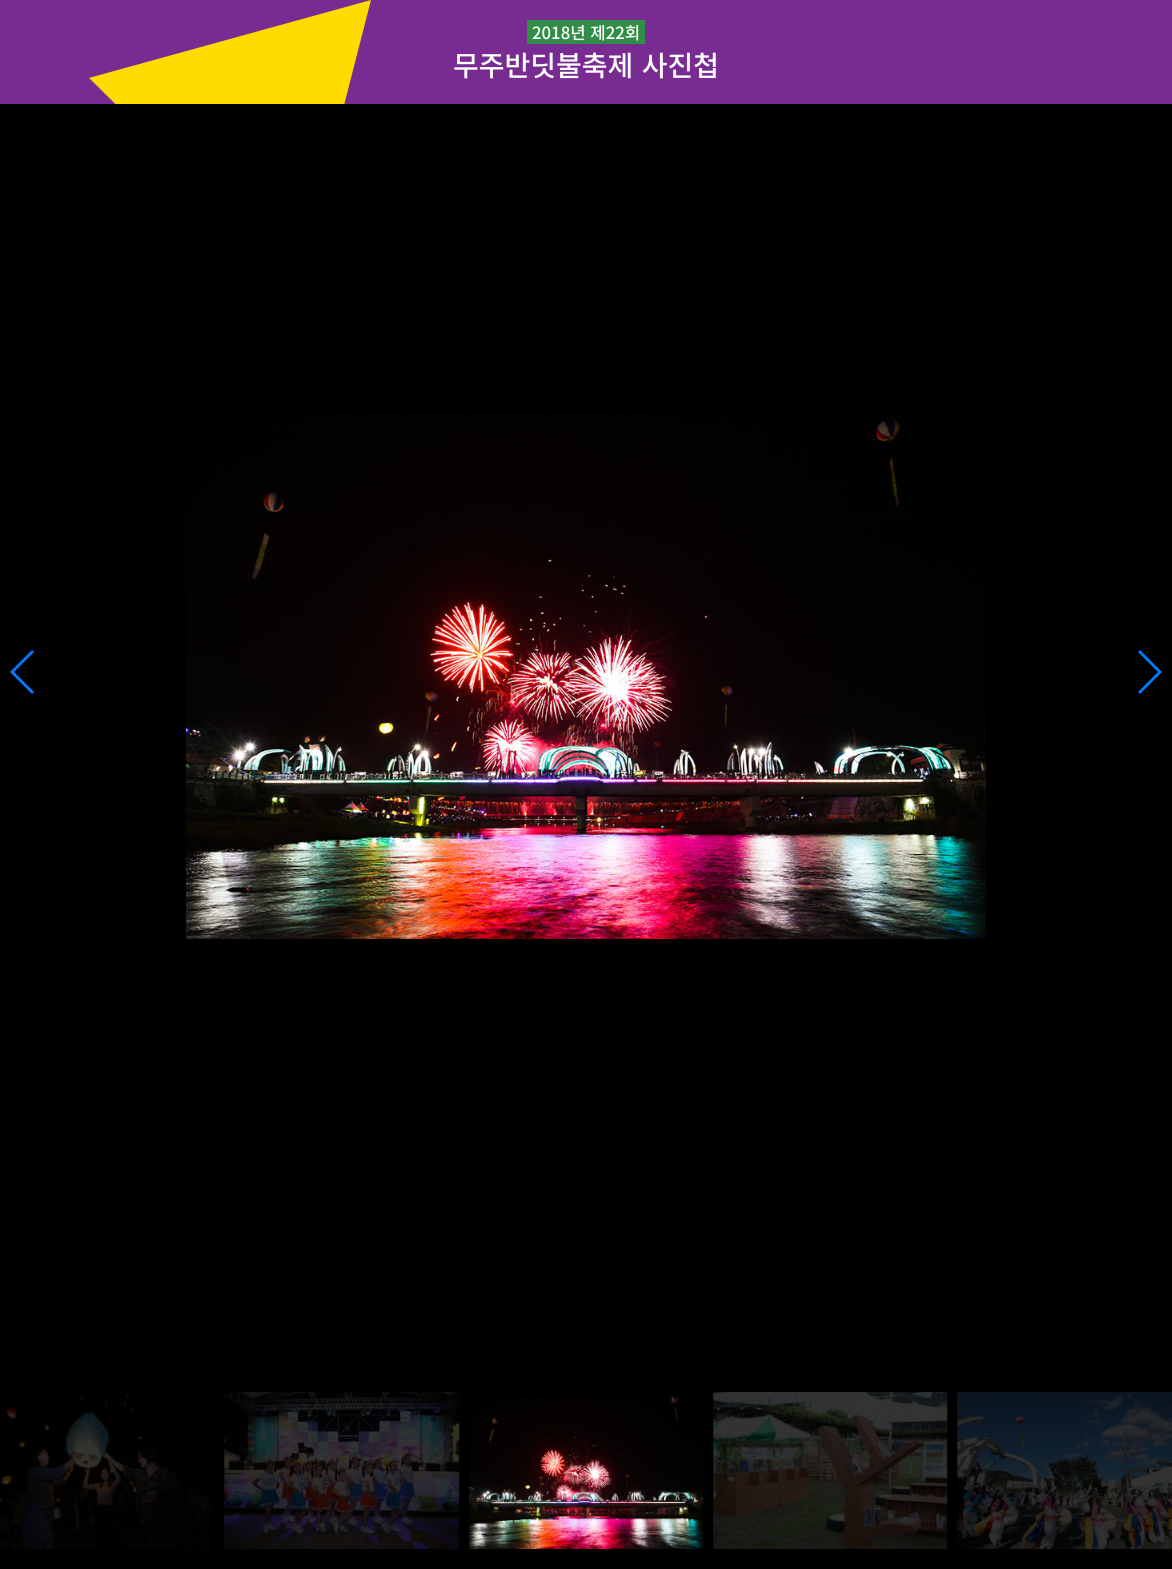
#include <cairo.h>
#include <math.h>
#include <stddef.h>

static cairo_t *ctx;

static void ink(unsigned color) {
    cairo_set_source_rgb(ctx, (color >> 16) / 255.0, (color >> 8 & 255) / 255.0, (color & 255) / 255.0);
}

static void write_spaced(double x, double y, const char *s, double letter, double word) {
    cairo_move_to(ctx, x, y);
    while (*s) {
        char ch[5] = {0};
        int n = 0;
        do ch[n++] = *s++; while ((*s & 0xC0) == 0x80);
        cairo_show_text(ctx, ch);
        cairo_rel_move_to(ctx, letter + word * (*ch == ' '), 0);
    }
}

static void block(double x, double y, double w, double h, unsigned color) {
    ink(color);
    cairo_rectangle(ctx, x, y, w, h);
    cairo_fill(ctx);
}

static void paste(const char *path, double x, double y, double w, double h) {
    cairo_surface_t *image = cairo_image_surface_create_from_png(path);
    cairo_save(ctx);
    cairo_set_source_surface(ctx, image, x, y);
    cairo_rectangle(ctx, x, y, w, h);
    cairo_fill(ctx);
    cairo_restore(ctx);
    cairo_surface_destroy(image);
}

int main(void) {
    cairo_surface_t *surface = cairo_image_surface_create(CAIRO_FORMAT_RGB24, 1172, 1569);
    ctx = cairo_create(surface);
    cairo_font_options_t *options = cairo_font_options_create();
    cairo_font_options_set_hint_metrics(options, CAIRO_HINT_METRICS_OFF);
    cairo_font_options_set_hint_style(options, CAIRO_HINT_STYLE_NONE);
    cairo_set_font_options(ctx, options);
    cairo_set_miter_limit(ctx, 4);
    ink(0x000000);
    cairo_paint(ctx);
    block(0, 0, 1172, 104, 0x782b91);
    paste("pic1.png", 89, 0, 282, 104);
    block(527, 20, 118, 24, 0x318e46);
    cairo_select_font_face(ctx, "Noto Sans KR Medium", CAIRO_FONT_SLANT_NORMAL, CAIRO_FONT_WEIGHT_NORMAL);
    cairo_set_font_size(ctx, 16.75);
    ink(0xffffff);
    write_spaced(532, 39, "2018년 제22회", 0, 1);
    cairo_set_font_size(ctx, 28);
    write_spaced(453, 76, "무주반딧불축제 사진첩", 0, 2);
    ink(0x007aff);
    cairo_new_path(ctx);
    cairo_move_to(ctx, 10, 672);
    cairo_line_to(ctx, 32, 650);
    cairo_line_to(ctx, 34, 652);
    cairo_line_to(ctx, 14, 672);
    cairo_line_to(ctx, 34, 692);
    cairo_line_to(ctx, 32, 694);
    cairo_close_path(ctx);
    cairo_fill(ctx);
    paste("pic2.png", 186, 412, 800, 527);
    cairo_new_path(ctx);
    cairo_move_to(ctx, 1162, 672);
    cairo_line_to(ctx, 1140, 694);
    cairo_line_to(ctx, 1138, 692);
    cairo_line_to(ctx, 1158, 672);
    cairo_line_to(ctx, 1138, 652);
    cairo_line_to(ctx, 1140, 650);
    cairo_close_path(ctx);
    cairo_fill(ctx);
    paste("pic3.png", 0, 1395, 212, 154);
    paste("pic4.png", 224, 1392, 236, 157);
    paste("pic5.png", 469, 1396, 235, 153);
    paste("pic6.png", 713, 1392, 235, 157);
    paste("pic7.png", 957, 1392, 215, 157);
    cairo_surface_write_to_png(surface, "screenshot.png");
    cairo_font_options_destroy(options);
    cairo_destroy(ctx);
    cairo_surface_destroy(surface);
    return 0;
}
